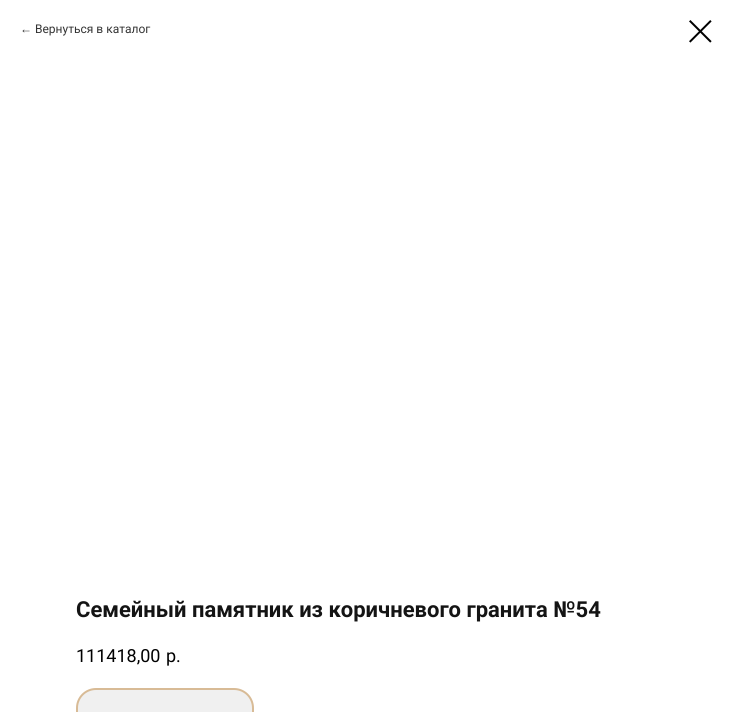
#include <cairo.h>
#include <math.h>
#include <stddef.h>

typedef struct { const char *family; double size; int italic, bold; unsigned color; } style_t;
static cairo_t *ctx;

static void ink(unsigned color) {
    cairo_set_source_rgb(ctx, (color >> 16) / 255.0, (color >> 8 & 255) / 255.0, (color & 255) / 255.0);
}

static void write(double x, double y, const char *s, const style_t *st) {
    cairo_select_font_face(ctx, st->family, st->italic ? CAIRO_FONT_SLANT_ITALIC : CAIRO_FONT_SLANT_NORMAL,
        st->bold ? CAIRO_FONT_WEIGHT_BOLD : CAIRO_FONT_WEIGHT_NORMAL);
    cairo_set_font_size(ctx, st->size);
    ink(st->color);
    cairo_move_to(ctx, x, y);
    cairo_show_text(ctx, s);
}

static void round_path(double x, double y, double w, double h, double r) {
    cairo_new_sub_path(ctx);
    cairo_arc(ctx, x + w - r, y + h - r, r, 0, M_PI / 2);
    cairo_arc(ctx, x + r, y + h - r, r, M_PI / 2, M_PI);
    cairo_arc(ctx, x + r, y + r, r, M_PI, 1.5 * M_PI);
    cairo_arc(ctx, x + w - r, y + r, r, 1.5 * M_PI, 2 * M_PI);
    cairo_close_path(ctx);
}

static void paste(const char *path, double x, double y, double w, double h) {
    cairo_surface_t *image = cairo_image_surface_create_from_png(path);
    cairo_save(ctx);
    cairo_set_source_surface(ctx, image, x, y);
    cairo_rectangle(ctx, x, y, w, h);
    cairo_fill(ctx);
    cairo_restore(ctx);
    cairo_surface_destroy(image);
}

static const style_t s1 = {"Liberation Sans", 12, 0, 0, 0x333333};
static const style_t s2 = {"Roboto", 12, 0, 0, 0x333333};
static const style_t s3 = {"Roboto", 22, 0, 1, 0x141414};
static const style_t s4 = {"Roboto", 18, 0, 0, 0x000000};

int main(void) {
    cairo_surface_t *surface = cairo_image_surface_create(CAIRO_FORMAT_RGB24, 732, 712);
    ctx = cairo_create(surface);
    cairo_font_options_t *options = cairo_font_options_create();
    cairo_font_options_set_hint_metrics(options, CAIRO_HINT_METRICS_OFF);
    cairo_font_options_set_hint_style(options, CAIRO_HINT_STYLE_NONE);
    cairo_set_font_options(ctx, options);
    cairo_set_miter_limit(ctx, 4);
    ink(0xffffff);
    cairo_paint(ctx);
    write(20, 33, "←", &s1);
    write(35, 33, "Вернуться в каталог", &s2);
    paste("pic1.png", 689, 20, 23, 23);
    write(76, 617, "Семейный памятник из коричневого гранита №54", &s3);
    write(76, 662, "111418,00", &s4);
    write(166, 662, "р.", &s4);
    ink(0xf0f0f0);
    round_path(77, 689, 176, 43, 19);
    cairo_fill_preserve(ctx);
    ink(0xd8bb96);
    cairo_stroke(ctx);
    cairo_surface_write_to_png(surface, "screenshot.png");
    cairo_font_options_destroy(options);
    cairo_destroy(ctx);
    cairo_surface_destroy(surface);
    return 0;
}
